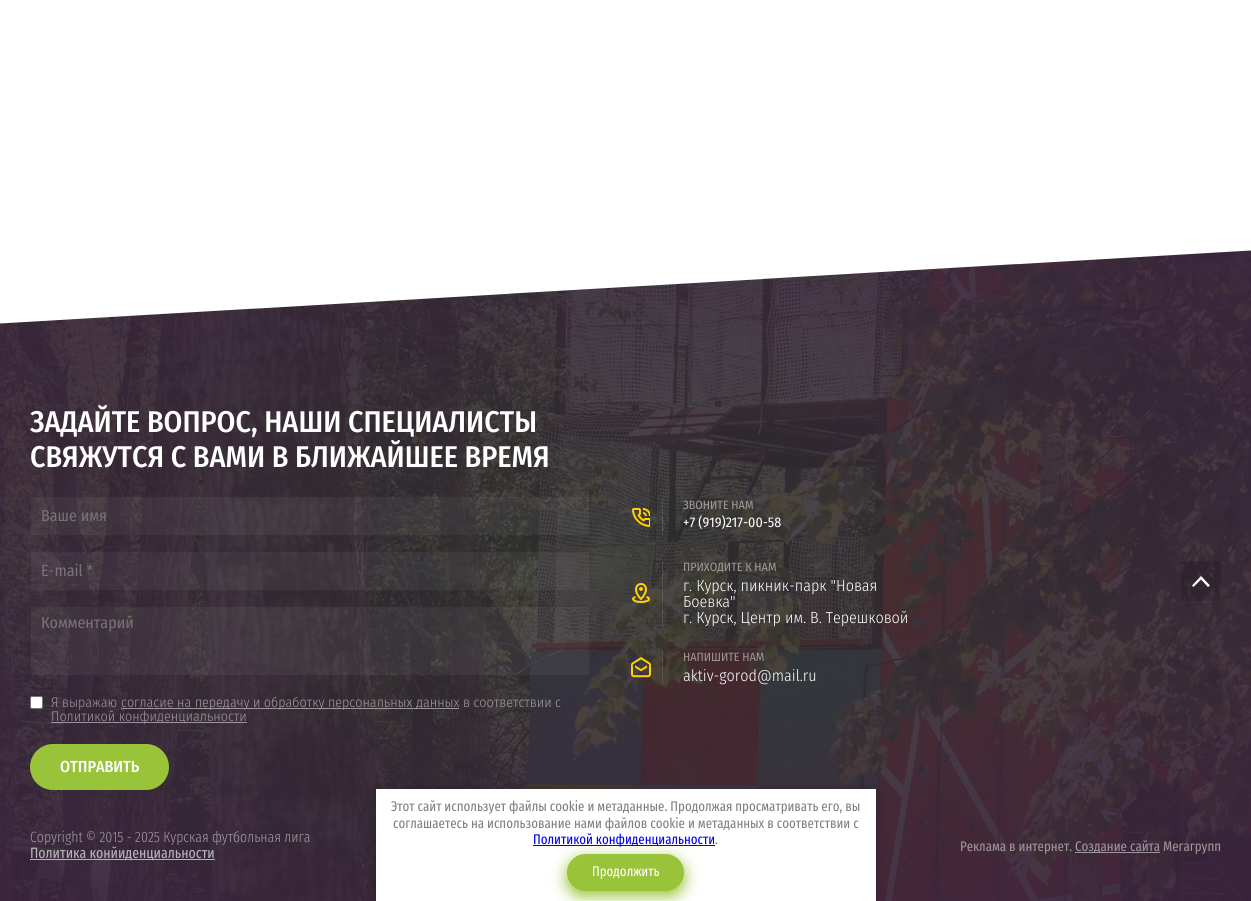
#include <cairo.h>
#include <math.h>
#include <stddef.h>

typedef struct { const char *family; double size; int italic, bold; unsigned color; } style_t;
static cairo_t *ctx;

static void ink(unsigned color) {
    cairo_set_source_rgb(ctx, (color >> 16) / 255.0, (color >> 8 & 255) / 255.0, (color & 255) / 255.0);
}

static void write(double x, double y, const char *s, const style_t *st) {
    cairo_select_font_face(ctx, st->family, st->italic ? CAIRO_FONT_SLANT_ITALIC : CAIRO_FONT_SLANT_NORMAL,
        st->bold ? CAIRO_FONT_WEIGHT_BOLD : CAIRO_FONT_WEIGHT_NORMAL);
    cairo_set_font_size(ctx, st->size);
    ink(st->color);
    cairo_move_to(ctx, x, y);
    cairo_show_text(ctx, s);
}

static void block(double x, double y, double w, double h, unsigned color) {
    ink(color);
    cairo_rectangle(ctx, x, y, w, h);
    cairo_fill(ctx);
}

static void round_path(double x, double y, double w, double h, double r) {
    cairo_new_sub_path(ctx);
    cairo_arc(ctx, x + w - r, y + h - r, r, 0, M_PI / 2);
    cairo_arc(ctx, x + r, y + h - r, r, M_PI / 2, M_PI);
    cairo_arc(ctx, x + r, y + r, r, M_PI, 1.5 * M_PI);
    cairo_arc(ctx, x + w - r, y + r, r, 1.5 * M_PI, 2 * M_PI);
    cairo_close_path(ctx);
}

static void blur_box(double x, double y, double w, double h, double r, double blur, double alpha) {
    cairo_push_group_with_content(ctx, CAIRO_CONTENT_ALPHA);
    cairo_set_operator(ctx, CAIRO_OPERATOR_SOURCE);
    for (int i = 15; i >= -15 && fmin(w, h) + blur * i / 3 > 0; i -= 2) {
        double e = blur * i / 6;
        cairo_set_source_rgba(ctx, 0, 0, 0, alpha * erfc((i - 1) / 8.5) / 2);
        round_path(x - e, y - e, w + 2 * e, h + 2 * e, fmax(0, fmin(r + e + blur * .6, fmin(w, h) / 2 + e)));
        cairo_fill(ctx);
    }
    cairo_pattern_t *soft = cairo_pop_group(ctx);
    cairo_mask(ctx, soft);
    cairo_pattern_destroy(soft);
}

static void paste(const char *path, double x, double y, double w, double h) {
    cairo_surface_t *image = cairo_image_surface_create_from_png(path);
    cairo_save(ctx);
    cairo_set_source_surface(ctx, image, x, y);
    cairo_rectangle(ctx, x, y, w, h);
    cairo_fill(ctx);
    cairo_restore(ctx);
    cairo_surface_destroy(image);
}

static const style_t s1 = {"Fira Sans Condensed Medium", 30, 0, 0, 0xffffff};
static const style_t s2 = {"Fira Sans Condensed", 16, 0, 0, 0x757575};
static const style_t s3 = {"Fira Sans Condensed Light", 14, 0, 0, 0xa09597};
static const style_t s4 = {"Fira Sans Condensed Light", 14, 0, 0, 0x9d9c9b};
static const style_t s5 = {"Fira Sans Condensed Light", 14, 0, 0, 0x9d969d};
static const style_t s6 = {"Fira Sans Condensed Medium", 16, 0, 0, 0xffffff};
static const style_t s7 = {"Fira Sans Condensed", 12, 0, 0, 0x9d9c9b};
static const style_t s8 = {"Fira Sans Condensed", 14, 0, 0, 0xffffff};
static const style_t s9 = {"Fira Sans Condensed Light", 16, 0, 0, 0xffffff};
static const style_t s10 = {"Fira Sans Condensed", 12, 0, 0, 0xa09597};
static const style_t s11 = {"Fira Sans Extra Condensed", 14, 0, 0, 0x808080};
static const style_t s12 = {"Fira Sans Extra Condensed", 14, 0, 0, 0x0000ee};
static const style_t s13 = {"Fira Sans Extra Condensed", 14, 0, 0, 0xffffff};
static const style_t s14 = {"Fira Sans Extra Condensed Light", 15, 0, 0, 0x9d969d};
static const style_t s15 = {"Fira Sans Extra Condensed", 15, 0, 0, 0xb5b5b5};
static const style_t s16 = {"Fira Sans Extra Condensed", 14, 0, 0, 0xa09597};
static const style_t s17 = {"Fira Sans Extra Condensed", 14, 0, 0, 0x9d969d};

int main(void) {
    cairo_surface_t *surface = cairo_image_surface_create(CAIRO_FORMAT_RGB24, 1251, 901);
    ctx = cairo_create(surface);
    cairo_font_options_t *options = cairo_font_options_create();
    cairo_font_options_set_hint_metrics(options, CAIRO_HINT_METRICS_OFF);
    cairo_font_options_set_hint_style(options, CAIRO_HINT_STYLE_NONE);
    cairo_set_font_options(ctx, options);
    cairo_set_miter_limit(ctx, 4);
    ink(0xffffff);
    cairo_paint(ctx);
    paste("pic1.png", 0, 250, 1251, 651);
    write(30, 432, "ЗАДАЙТЕ ВОПРОС, НАШИ СПЕЦИАЛИСТЫ", &s1);
    write(30, 467, "СВЯЖУТСЯ С ВАМИ В БЛИЖАЙШЕЕ ВРЕМЯ", &s1);
    cairo_set_source_rgba(ctx, 1, 1, 1, 0.05);
    cairo_rectangle(ctx, 30, 496, 560, 40);
    cairo_fill(ctx);
    cairo_rectangle(ctx, 30.5, 496.5, 559, 39);
    cairo_set_source_rgba(ctx, 0, 0, 0, 0.15);
    cairo_set_line_width(ctx, 1);
    cairo_stroke(ctx);
    write(41, 521, "Ваше имя", &s2);
    cairo_set_source_rgba(ctx, 1, 1, 1, 0.05);
    cairo_rectangle(ctx, 30, 551, 560, 40);
    cairo_fill(ctx);
    cairo_rectangle(ctx, 30.5, 551.5, 559, 39);
    cairo_set_source_rgba(ctx, 0, 0, 0, 0.15);
    cairo_stroke(ctx);
    write(41, 576, "E-mail *", &s2);
    cairo_set_source_rgba(ctx, 1, 1, 1, 0.05);
    cairo_rectangle(ctx, 30, 606, 560, 70);
    cairo_fill(ctx);
    cairo_rectangle(ctx, 30.5, 606.5, 559, 69);
    cairo_set_source_rgba(ctx, 0, 0, 0, 0.15);
    cairo_stroke(ctx);
    write(41, 628, "Комментарий", &s2);
    ink(0xffffff);
    round_path(30.5, 696.5, 12, 12, 1.5);
    cairo_fill_preserve(ctx);
    ink(0x767676);
    cairo_stroke(ctx);
    write(51, 707, "Я выражаю", &s3);
    cairo_set_source_rgba(ctx, 1, 1, 1, 0.5);
    cairo_rectangle(ctx, 121, 708, 338, 1);
    cairo_fill(ctx);
    write(121, 707, "согласие на передачу и обработку персональных данных", &s4);
    write(463, 707, "в соответствии с", &s4);
    cairo_set_source_rgba(ctx, 1, 1, 1, 0.5);
    cairo_rectangle(ctx, 51, 722, 196, 1);
    cairo_fill(ctx);
    write(51, 721, "Политикой конфиденциальности", &s5);
    ink(0x99c339);
    round_path(30, 744, 139, 46, 23);
    cairo_fill(ctx);
    write(60, 772, "ОТПРАВИТЬ", &s6);
    paste("pic2.png", 632, 508, 18, 19);
    cairo_set_source_rgba(ctx, 1, 1, 1, 0.1);
    cairo_rectangle(ctx, 662, 499, 1, 37);
    cairo_fill(ctx);
    write(683, 509, "ЗВОНИТЕ НАМ", &s7);
    write(683, 527, "+7 (919)217-00-58", &s8);
    paste("pic3.png", 632, 583, 18, 20);
    cairo_set_source_rgba(ctx, 1, 1, 1, 0.1);
    cairo_rectangle(ctx, 662, 561, 1, 65);
    cairo_fill(ctx);
    write(683, 571, "ПРИХОДИТЕ К НАМ", &s7);
    write(683, 591, "г. Курск, пикник-парк \"Новая", &s9);
    write(683, 607, "Боевка\"", &s9);
    write(683, 623, "г. Курск, Центр им. В. Терешковой", &s9);
    paste("pic4.png", 631, 657, 20, 21);
    cairo_set_source_rgba(ctx, 1, 1, 1, 0.1);
    cairo_rectangle(ctx, 662, 651, 1, 33);
    cairo_fill(ctx);
    write(683, 661, "НАПИШИТЕ НАМ", &s10);
    write(683, 681, "aktiv-gorod@mail.ru", &s9);
    ink(0x000000);
    blur_box(376, 790, 500, 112, 0, 5, 0.23);
    block(376, 789, 500, 112, 0xffffff);
    write(391, 811, "Этот сайт использует файлы cookie и метаданные. Продолжая просматривать его, вы", &s11);
    write(393, 828, "соглашаетесь на использование нами файлов cookie и метаданных в соответствии с", &s11);
    block(533, 845, 182, 1, 0x0000ee);
    write(533, 844, "Политикой конфиденциальности", &s12);
    write(715, 844, ".", &s11);
    ink(0x99c339);
    blur_box(567, 859, 117, 37, 18.5, 7.5, 1);
    ink(0x99c339);
    round_path(567, 854, 117, 37, 18.5);
    cairo_fill(ctx);
    write(592, 876, "Продолжить", &s13);
    write(30, 842, "Copyright © 2015 - 2025 Курская футбольная лига", &s14);
    block(30, 859, 185, 1, 0xb5b5b5);
    write(30, 858, "Политика конйиденциальности", &s15);
    write(960, 851, "Реклама в интернет.", &s16);
    cairo_set_source_rgba(ctx, 1, 1, 1, 0.5);
    cairo_rectangle(ctx, 1075, 852, 85, 1);
    cairo_fill(ctx);
    write(1075, 851, "Создание сайта", &s17);
    write(1163, 851, "Мегагрупп", &s16);
    cairo_set_source_rgba(ctx, 0, 0, 0, 0.15);
    cairo_rectangle(ctx, 1181, 561, 40, 40);
    cairo_fill(ctx);
    ink(0xffffff);
    cairo_set_fill_rule(ctx, CAIRO_FILL_RULE_EVEN_ODD);
    cairo_new_path(ctx);
    cairo_move_to(ctx, 1192, 585.5);
    cairo_line_to(ctx, 1201, 576);
    cairo_line_to(ctx, 1210, 585.5);
    cairo_line_to(ctx, 1208, 587);
    cairo_line_to(ctx, 1201, 579.5);
    cairo_line_to(ctx, 1193.5, 587);
    cairo_close_path(ctx);
    cairo_fill(ctx);
    cairo_surface_write_to_png(surface, "screenshot.png");
    cairo_font_options_destroy(options);
    cairo_destroy(ctx);
    cairo_surface_destroy(surface);
    return 0;
}
